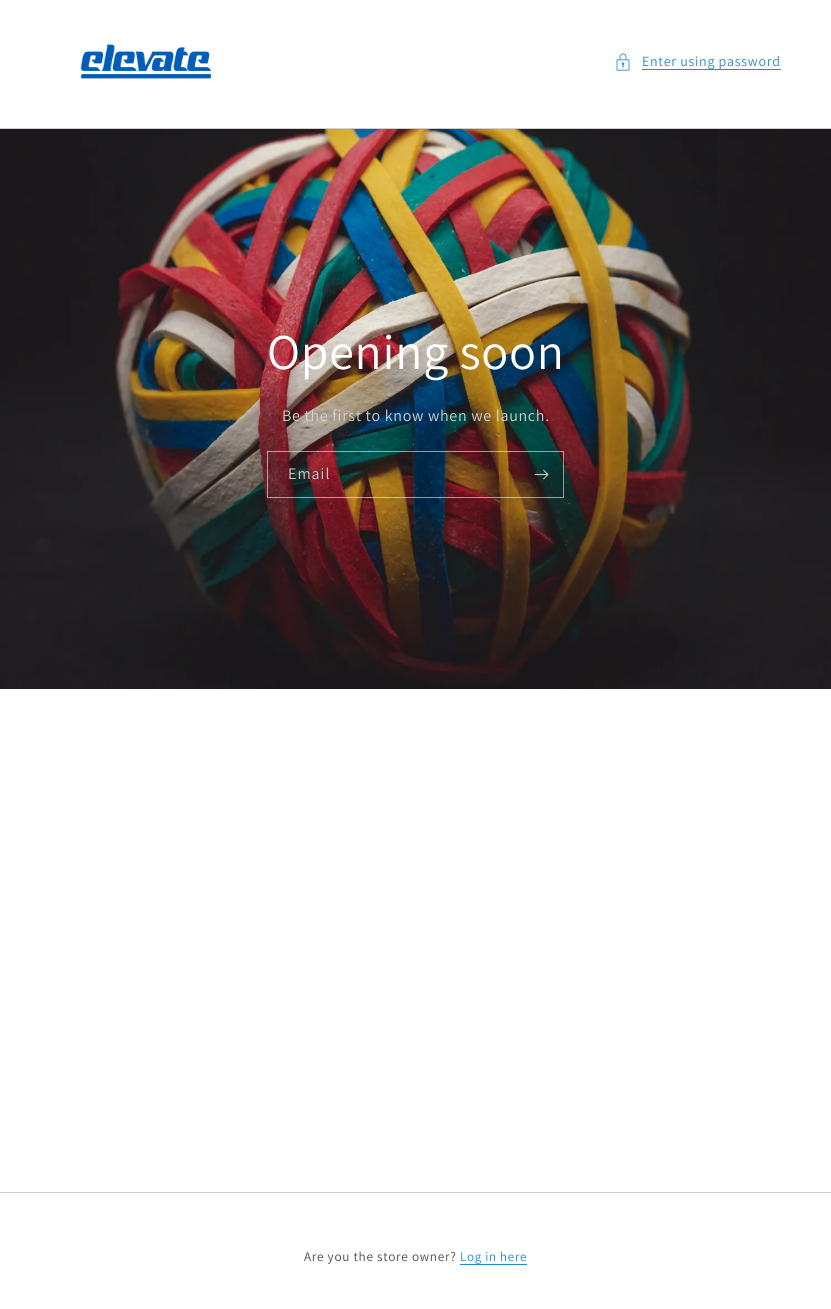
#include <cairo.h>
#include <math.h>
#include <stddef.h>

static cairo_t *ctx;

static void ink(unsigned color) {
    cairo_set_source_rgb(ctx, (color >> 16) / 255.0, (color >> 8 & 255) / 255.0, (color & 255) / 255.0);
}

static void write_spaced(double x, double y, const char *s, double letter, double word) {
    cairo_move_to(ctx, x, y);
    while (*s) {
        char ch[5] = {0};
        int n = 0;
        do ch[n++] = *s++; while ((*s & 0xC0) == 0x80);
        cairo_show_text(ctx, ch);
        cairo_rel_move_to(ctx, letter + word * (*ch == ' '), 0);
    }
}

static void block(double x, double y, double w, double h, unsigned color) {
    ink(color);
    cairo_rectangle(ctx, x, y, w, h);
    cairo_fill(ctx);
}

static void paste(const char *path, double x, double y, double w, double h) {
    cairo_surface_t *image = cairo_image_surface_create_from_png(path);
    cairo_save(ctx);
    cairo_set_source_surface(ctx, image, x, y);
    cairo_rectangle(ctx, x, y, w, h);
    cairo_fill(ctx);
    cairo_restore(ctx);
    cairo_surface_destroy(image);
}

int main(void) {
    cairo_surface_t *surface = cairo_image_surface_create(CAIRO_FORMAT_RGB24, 831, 1309);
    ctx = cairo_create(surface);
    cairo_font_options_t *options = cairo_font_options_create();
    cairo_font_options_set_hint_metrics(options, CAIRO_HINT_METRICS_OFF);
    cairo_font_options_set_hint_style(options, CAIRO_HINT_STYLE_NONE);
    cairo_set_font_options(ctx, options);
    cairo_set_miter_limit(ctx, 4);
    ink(0xffffff);
    cairo_paint(ctx);
    paste("pic1.png", 80, 44, 132, 35);
    paste("pic2.png", 616, 53, 14, 18);
    block(642, 69, 139, 1, 0x268dca);
    cairo_select_font_face(ctx, "Assistant", CAIRO_FONT_SLANT_NORMAL, CAIRO_FONT_WEIGHT_NORMAL);
    cairo_set_font_size(ctx, 14);
    write_spaced(642, 66, "Enter using password", 0.7, 0);
    block(0, 128, 831, 1, 0xd0d0d0);
    paste("pic3.png", 0, 129, 831, 560);
    cairo_set_font_size(ctx, 50);
    ink(0xffffff);
    write_spaced(267, 369, "Opening soon", 0.75, 0);
    cairo_set_font_size(ctx, 16);
    ink(0xcfd2d2);
    write_spaced(282, 421, "Be the first to know when we launch.", 0.7, 0);
    cairo_rectangle(ctx, 267.5, 451.5, 296, 46);
    cairo_set_source_rgba(ctx, 1, 1, 1, 0.55);
    cairo_set_line_width(ctx, 1);
    cairo_stroke(ctx);
    cairo_select_font_face(ctx, "Liberation Sans", CAIRO_FONT_SLANT_NORMAL, CAIRO_FONT_WEIGHT_NORMAL);
    ink(0x57272e);
    write_spaced(283, 479, "Email", 0.5, 0);
    cairo_select_font_face(ctx, "Assistant", CAIRO_FONT_SLANT_NORMAL, CAIRO_FONT_WEIGHT_NORMAL);
    ink(0xd5c9cb);
    write_spaced(288, 479, "Email", 1, 0);
    paste("pic4.png", 534, 469, 15, 11);
    block(0, 1192, 831, 1, 0xd0d0d0);
    cairo_set_font_size(ctx, 13.25);
    ink(0x4d4d4d);
    write_spaced(304, 1261, "Are you the store owner?", 0.7, 0);
    cairo_set_font_size(ctx, 13);
    ink(0x268dca);
    write_spaced(460, 1261, "Log in here", 0.7, 0);
    block(460, 1264, 67, 1, 0x268dca);
    cairo_surface_write_to_png(surface, "screenshot.png");
    cairo_font_options_destroy(options);
    cairo_destroy(ctx);
    cairo_surface_destroy(surface);
    return 0;
}
